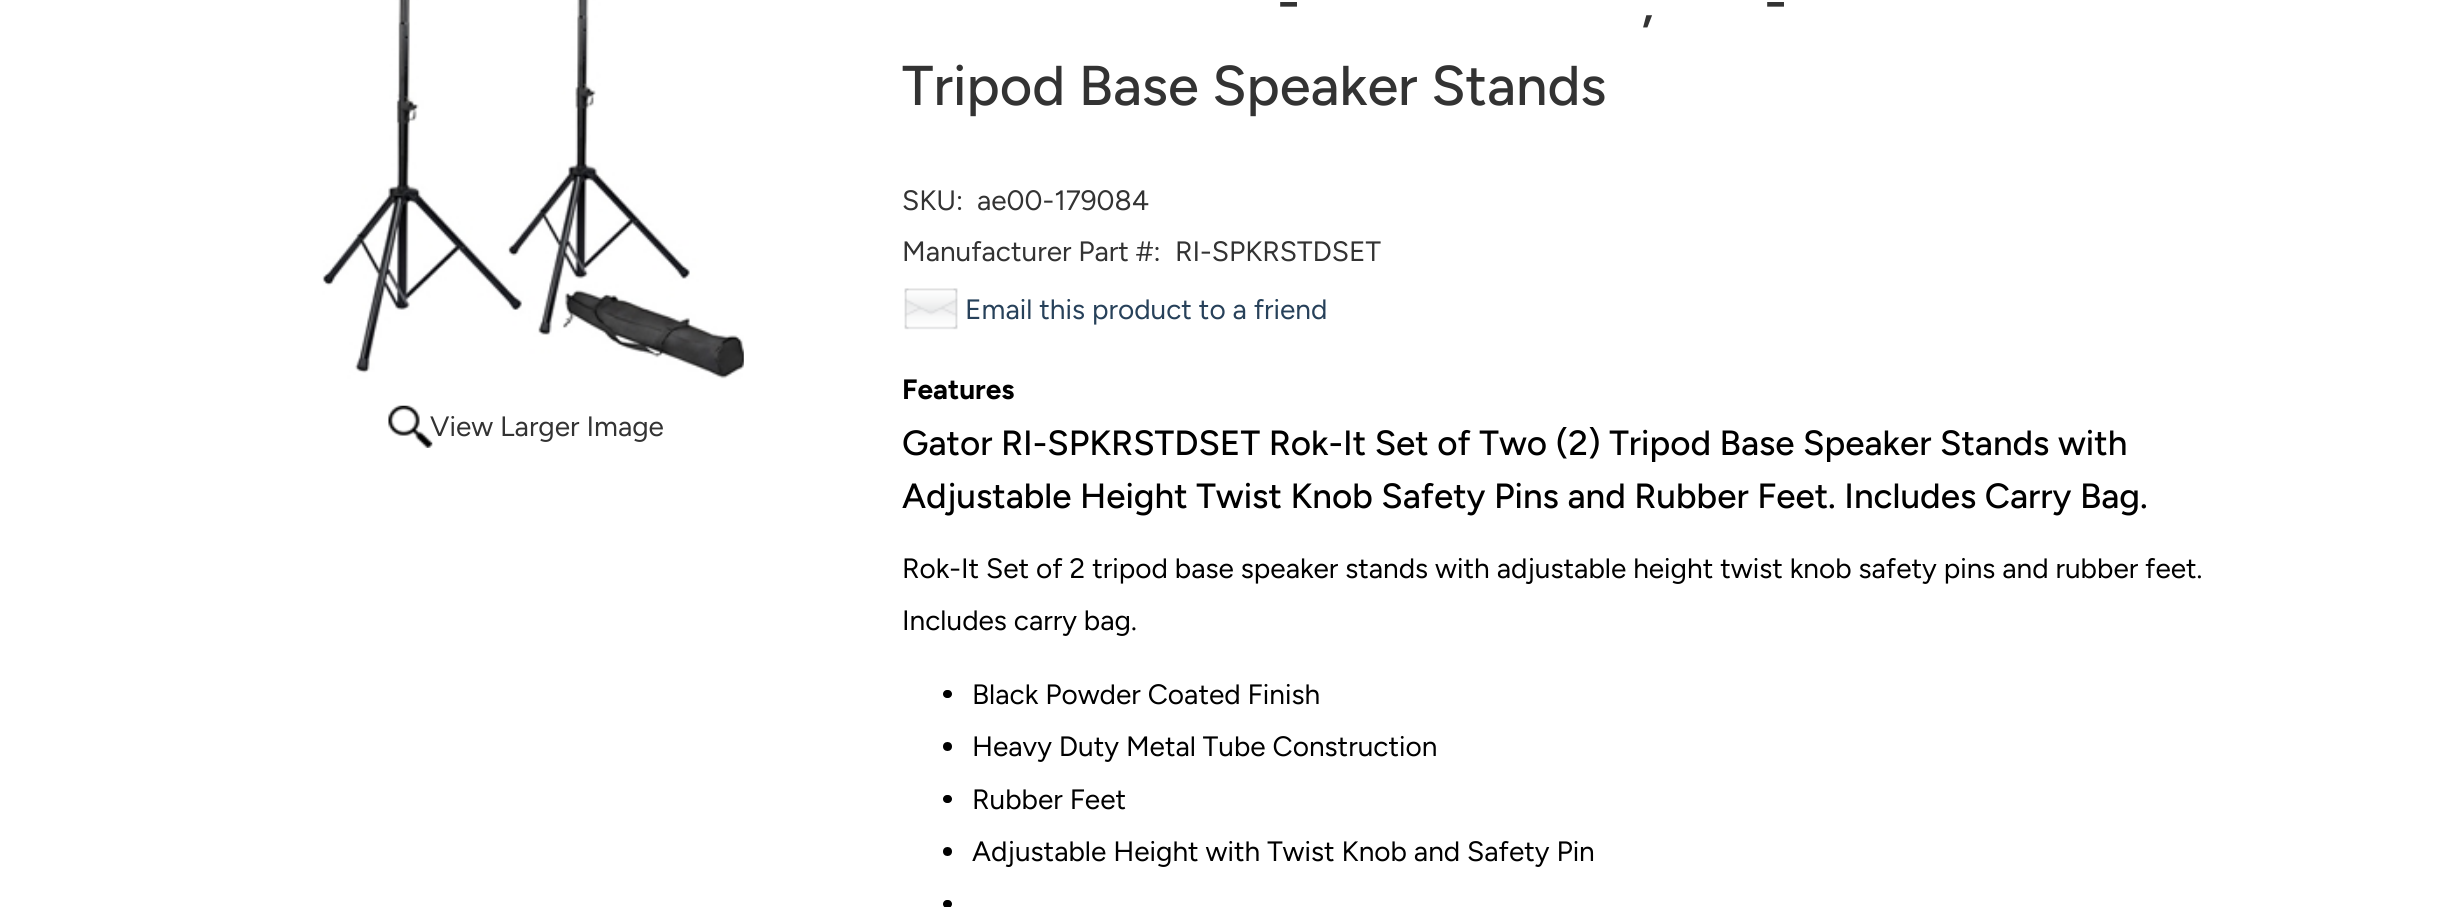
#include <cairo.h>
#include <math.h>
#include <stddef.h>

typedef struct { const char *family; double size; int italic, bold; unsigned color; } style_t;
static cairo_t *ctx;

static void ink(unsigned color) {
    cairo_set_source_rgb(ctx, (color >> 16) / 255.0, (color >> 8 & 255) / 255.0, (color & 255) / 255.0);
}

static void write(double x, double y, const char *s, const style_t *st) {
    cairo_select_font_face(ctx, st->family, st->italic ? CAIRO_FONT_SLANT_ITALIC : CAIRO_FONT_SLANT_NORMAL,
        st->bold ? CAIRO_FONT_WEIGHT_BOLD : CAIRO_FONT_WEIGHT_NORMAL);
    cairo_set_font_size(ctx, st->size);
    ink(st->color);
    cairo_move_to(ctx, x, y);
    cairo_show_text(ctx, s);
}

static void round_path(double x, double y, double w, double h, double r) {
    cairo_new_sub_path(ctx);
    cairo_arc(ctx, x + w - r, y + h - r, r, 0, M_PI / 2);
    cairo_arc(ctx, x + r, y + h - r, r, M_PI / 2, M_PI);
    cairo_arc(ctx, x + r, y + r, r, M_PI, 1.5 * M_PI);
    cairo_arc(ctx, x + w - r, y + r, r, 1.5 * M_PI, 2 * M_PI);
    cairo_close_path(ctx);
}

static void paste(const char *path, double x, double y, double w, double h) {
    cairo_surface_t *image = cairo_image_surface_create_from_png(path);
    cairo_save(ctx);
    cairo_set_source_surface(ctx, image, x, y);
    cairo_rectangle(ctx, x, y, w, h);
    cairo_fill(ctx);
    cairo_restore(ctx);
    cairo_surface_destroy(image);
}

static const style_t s1 = {"Figtree", 28, 0, 0, 0x333333};
static const style_t s2 = {"Figtree Medium", 56, 0, 0, 0x333333};
static const style_t s3 = {"Figtree", 28, 0, 0, 0x27415a};
static const style_t s4 = {"Figtree", 28, 0, 1, 0x000000};
static const style_t s5 = {"Figtree Medium", 35, 0, 0, 0x000000};
static const style_t s6 = {"Figtree", 28, 0, 0, 0x000000};

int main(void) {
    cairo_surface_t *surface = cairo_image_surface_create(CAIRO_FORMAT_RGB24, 2453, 907);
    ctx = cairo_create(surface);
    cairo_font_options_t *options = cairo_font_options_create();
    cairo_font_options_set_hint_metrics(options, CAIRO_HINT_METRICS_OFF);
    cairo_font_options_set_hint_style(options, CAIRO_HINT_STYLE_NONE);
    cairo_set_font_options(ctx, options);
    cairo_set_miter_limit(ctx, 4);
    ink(0xffffff);
    cairo_paint(ctx);
    paste("pic1.png", 322, 0, 422, 379);
    paste("pic2.png", 388, 405, 45, 43);
    write(430, 436, "View Larger Image", &s1);
    write(1277, 21, "-", &s2);
    write(1764, 21, "-", &s2);
    write(1641, 21, ",", &s2);
    write(902, 105, "Tripod Base Speaker Stands", &s2);
    write(902, 210, "SKU:", &s1);
    write(977, 210, "ae00-179084", &s1);
    write(902, 261, "Manufacturer Part #:", &s1);
    write(1175, 261, "RI-SPKRSTDSET", &s1);
    paste("pic3.png", 904, 288, 54, 42);
    write(965, 319, "Email this product to a friend", &s3);
    write(902, 399, "Features", &s4);
    write(902, 455, "Gator RI-SPKRSTDSET Rok-It Set of Two (2) Tripod Base Speaker Stands with", &s5);
    write(902, 508, "Adjustable Height Twist Knob Safety Pins and Rubber Feet. Includes Carry Bag.", &s5);
    write(902, 578, "Rok-It Set of 2 tripod base speaker stands with adjustable height twist knob safety pins and rubber feet.", &s6);
    write(902, 630, "Includes carry bag.", &s6);
    round_path(943, 690, 9, 8, 4);
    cairo_fill(ctx);
    write(972, 704, "Black Powder Coated Finish", &s6);
    cairo_new_path(ctx);
    cairo_arc(ctx, 947.5, 746.5, 4.5, 0, 2 * M_PI);
    cairo_fill(ctx);
    write(972, 756, "Heavy Duty Metal Tube Construction", &s6);
    round_path(943, 795, 9, 8, 4);
    cairo_fill(ctx);
    write(972, 809, "Rubber Feet", &s6);
    cairo_new_path(ctx);
    cairo_arc(ctx, 947.5, 851.5, 4.5, 0, 2 * M_PI);
    cairo_fill(ctx);
    write(972, 861, "Adjustable Height with Twist Knob and Safety Pin", &s6);
    round_path(943, 900, 9, 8, 4);
    cairo_fill(ctx);
    cairo_surface_write_to_png(surface, "screenshot.png");
    cairo_font_options_destroy(options);
    cairo_destroy(ctx);
    cairo_surface_destroy(surface);
    return 0;
}
